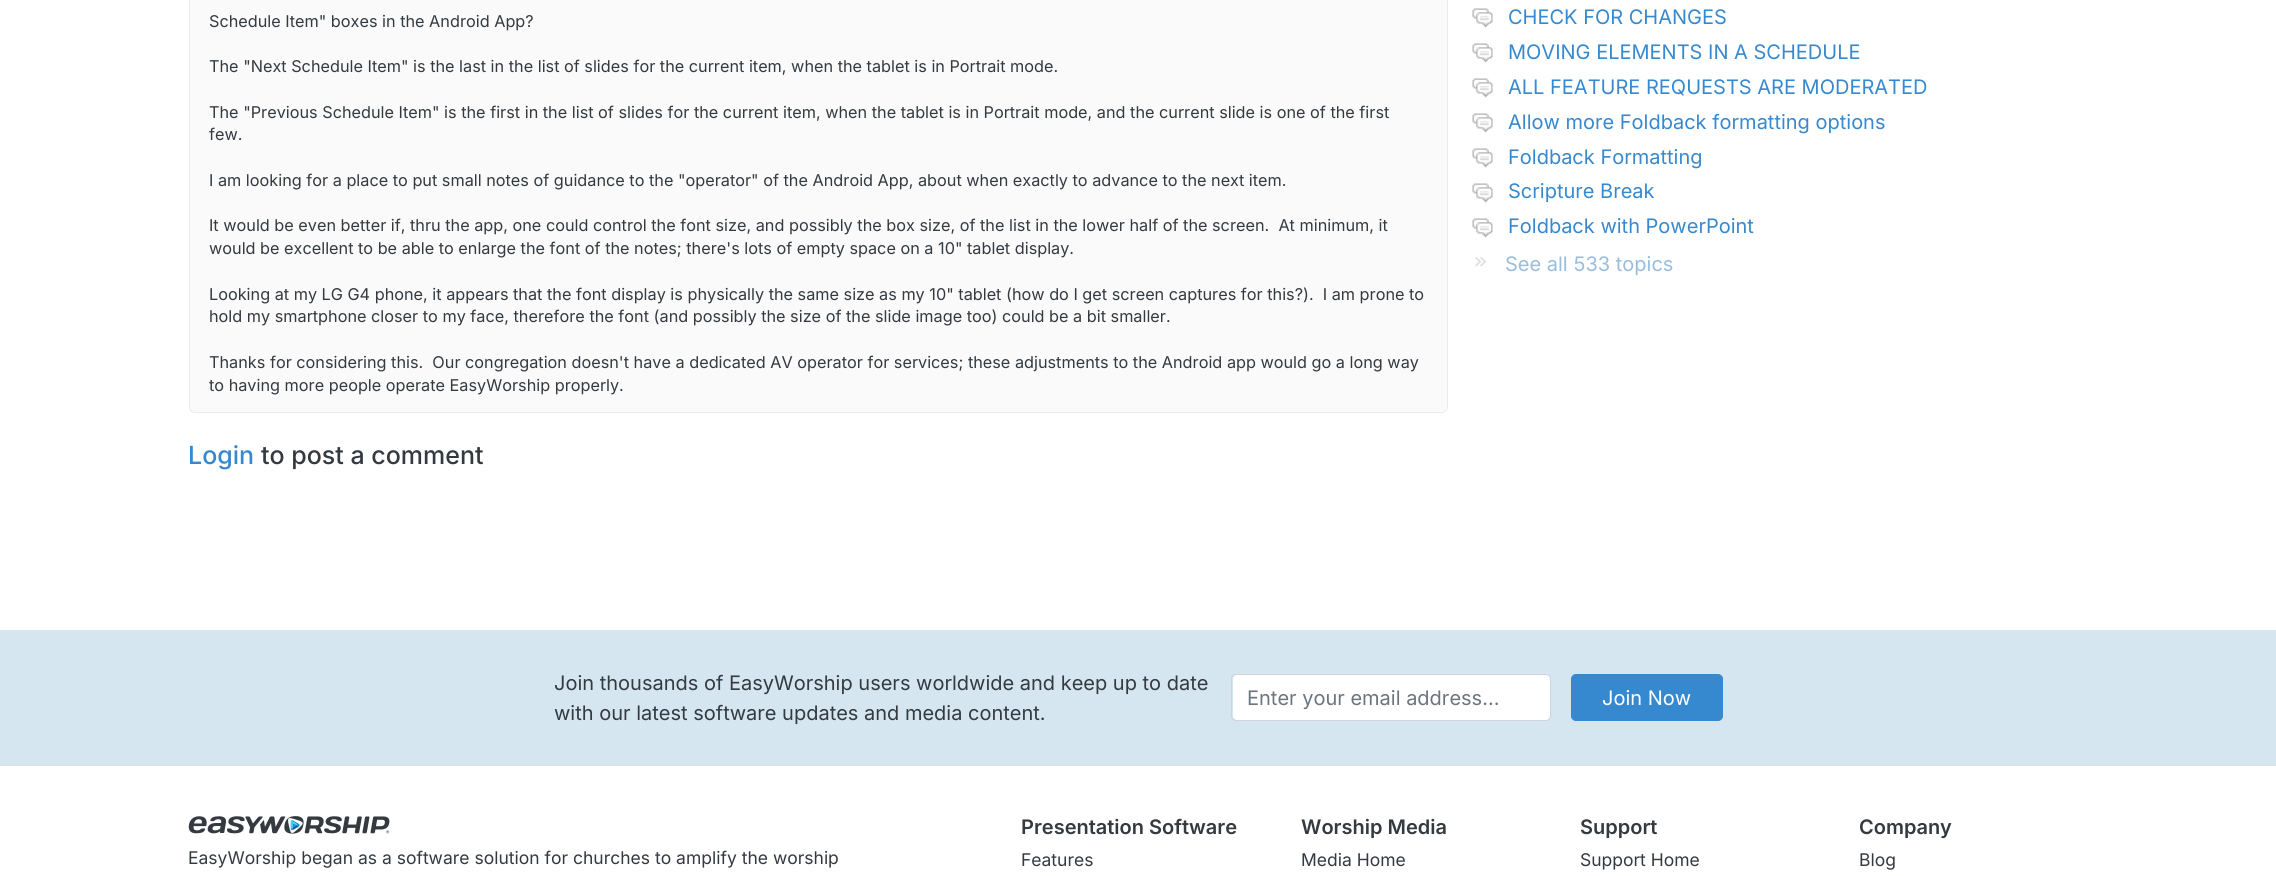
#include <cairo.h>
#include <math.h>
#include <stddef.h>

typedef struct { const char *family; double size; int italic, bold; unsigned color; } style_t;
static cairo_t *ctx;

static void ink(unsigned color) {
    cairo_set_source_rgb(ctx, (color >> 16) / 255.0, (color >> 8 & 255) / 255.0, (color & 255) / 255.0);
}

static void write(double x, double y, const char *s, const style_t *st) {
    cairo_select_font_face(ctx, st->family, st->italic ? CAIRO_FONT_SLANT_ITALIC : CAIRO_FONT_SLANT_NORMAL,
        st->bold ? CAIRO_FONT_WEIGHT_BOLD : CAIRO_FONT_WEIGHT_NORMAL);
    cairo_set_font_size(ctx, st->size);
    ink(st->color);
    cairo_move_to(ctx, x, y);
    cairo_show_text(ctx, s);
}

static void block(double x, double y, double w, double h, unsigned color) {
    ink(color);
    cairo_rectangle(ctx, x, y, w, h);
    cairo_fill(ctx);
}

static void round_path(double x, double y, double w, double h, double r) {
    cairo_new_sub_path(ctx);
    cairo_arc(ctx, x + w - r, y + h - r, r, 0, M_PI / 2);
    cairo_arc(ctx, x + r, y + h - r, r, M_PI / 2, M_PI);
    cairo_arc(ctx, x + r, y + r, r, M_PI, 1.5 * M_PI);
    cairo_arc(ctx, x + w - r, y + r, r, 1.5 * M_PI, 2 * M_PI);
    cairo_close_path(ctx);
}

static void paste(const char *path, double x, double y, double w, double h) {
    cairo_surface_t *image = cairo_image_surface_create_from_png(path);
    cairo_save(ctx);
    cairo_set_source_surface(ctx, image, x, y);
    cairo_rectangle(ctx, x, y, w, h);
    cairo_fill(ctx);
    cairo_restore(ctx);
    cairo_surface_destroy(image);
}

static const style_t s1 = {"Inter", 16.25, 0, 0, 0x343a40};
static const style_t s2 = {"Inter Medium", 25, 0, 0, 0x3689cf};
static const style_t s3 = {"Inter Medium", 25, 0, 0, 0x343a40};
static const style_t s4 = {"Inter", 20, 0, 0, 0x3689cf};
static const style_t s5 = {"Inter", 20, 0, 0, 0x99bddb};
static const style_t s6 = {"Inter", 20, 0, 0, 0x343a40};
static const style_t s7 = {"Inter", 20, 0, 0, 0x6c757d};
static const style_t s8 = {"Inter", 20, 0, 0, 0xffffff};
static const style_t s9 = {"Inter", 17.5, 0, 0, 0x343a40};
static const style_t s10 = {"Inter SemiBold", 20, 0, 0, 0x343a40};

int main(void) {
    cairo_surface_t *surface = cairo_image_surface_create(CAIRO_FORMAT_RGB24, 2276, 876);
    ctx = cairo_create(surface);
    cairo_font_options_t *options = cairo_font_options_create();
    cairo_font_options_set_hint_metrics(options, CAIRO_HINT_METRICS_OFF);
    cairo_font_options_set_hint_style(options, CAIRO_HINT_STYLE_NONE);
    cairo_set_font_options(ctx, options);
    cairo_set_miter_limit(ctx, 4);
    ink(0xffffff);
    cairo_paint(ctx);
    ink(0xfafafa);
    round_path(189.5, -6.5, 1258, 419, 5.5);
    cairo_fill_preserve(ctx);
    ink(0xebebeb);
    cairo_set_line_width(ctx, 1);
    cairo_stroke(ctx);
    write(209, 27, "Schedule Item\" boxes in the Android App?", &s1);
    write(209, 72, "The \"Next Schedule Item\" is the last in the list of slides for the current item, when the tablet is in Portrait mode.", &s1);
    write(209, 118, "The \"Previous Schedule Item\" is the first in the list of slides for the current item, when the tablet is in Portrait mode, and the current slide is one of the first", &s1);
    write(209, 140, "few.", &s1);
    write(209, 186, "I am looking for a place to put small notes of guidance to the \"operator\" of the Android App, about when exactly to advance to the next item.", &s1);
    write(209, 231, "It would be even better if, thru the app, one could control the font size, and possibly the box size, of the list in the lower half of the screen.  At minimum, it", &s1);
    write(209, 254, "would be excellent to be able to enlarge the font of the notes; there's lots of empty space on a 10\" tablet display.", &s1);
    write(209, 300, "Looking at my LG G4 phone, it appears that the font display is physically the same size as my 10\" tablet (how do I get screen captures for this?).  I am prone to", &s1);
    write(209, 322, "hold my smartphone closer to my face, therefore the font (and possibly the size of the slide image too) could be a bit smaller.", &s1);
    write(209, 368, "Thanks for considering this.  Our congregation doesn't have a dedicated AV operator for services; these adjustments to the Android app would go a long way", &s1);
    write(209, 391, "to having more people operate EasyWorship properly.", &s1);
    write(188, 464, "Login", &s2);
    write(261, 464, "to post a comment", &s3);
    paste("pic1.png", 1472, 8, 21, 20);
    write(1508, 24, "CHECK FOR CHANGES", &s4);
    paste("pic1.png", 1472, 43, 21, 20);
    write(1508, 59, "MOVING ELEMENTS IN A SCHEDULE", &s4);
    paste("pic1.png", 1472, 78, 21, 20);
    write(1508, 94, "ALL FEATURE REQUESTS ARE MODERATED", &s4);
    paste("pic1.png", 1472, 113, 21, 20);
    write(1508, 129, "Allow more Foldback formatting options", &s4);
    paste("pic1.png", 1472, 148, 21, 20);
    write(1508, 164, "Foldback Formatting", &s4);
    paste("pic1.png", 1472, 183, 21, 20);
    write(1508, 198, "Scripture Break", &s4);
    paste("pic1.png", 1472, 218, 21, 20);
    write(1508, 233, "Foldback with PowerPoint", &s4);
    paste("pic2.png", 1475, 257, 12, 10);
    write(1505, 271, "See all 533 topics", &s5);
    block(0, 630, 2276, 135, 0xd5e6f1);
    write(554, 690, "Join thousands of EasyWorship users worldwide and keep up to date", &s6);
    write(554, 720, "with our latest software updates and media content.", &s6);
    ink(0xffffff);
    round_path(1233, 675, 317, 45, 4);
    cairo_fill(ctx);
    round_path(1231.5, 674.5, 319, 46, 4.5);
    ink(0xced4da);
    cairo_stroke(ctx);
    write(1247, 705, "Enter your email address...", &s7);
    ink(0x3689cf);
    round_path(1571.5, 674.5, 151, 46, 4.5);
    cairo_fill_preserve(ctx);
    cairo_stroke(ctx);
    write(1602, 705, "Join Now", &s8);
    block(0, 765, 2276, 1, 0xdee2e6);
    paste("pic3.png", 188, 816, 19, 18);
    paste("pic4.png", 207, 816, 20, 18);
    paste("pic5.png", 227, 816, 18, 18);
    paste("pic6.png", 245, 816, 18, 18);
    paste("pic7.png", 260, 816, 26, 18);
    paste("pic8.png", 284, 816, 20, 18);
    paste("pic9.png", 304, 816, 20, 18);
    paste("pic10.png", 324, 816, 18, 18);
    paste("pic11.png", 342, 816, 20, 18);
    paste("pic12.png", 362, 816, 8, 18);
    paste("pic13.png", 370, 816, 20, 18);
    paste("pic15.png", 291, 820, 9, 7);
    paste("pic17.png", 290, 827, 3, 4);
    paste("pic14.png", 290, 820, 7, 9);
    paste("pic16.png", 292, 823, 5, 5);
    paste("pic18.png", 292, 825, 7, 5);
    paste("pic19.png", 386, 830, 4, 4);
    write(188, 864, "EasyWorship began as a software solution for churches to amplify the worship", &s9);
    write(1021, 834, "Presentation Software", &s10);
    write(1021, 866, "Features", &s9);
    write(1301, 834, "Worship Media", &s10);
    write(1301, 866, "Media Home", &s9);
    write(1580, 834, "Support", &s10);
    write(1580, 866, "Support Home", &s9);
    write(1859, 834, "Company", &s10);
    write(1859, 866, "Blog", &s9);
    cairo_surface_write_to_png(surface, "screenshot.png");
    cairo_font_options_destroy(options);
    cairo_destroy(ctx);
    cairo_surface_destroy(surface);
    return 0;
}
